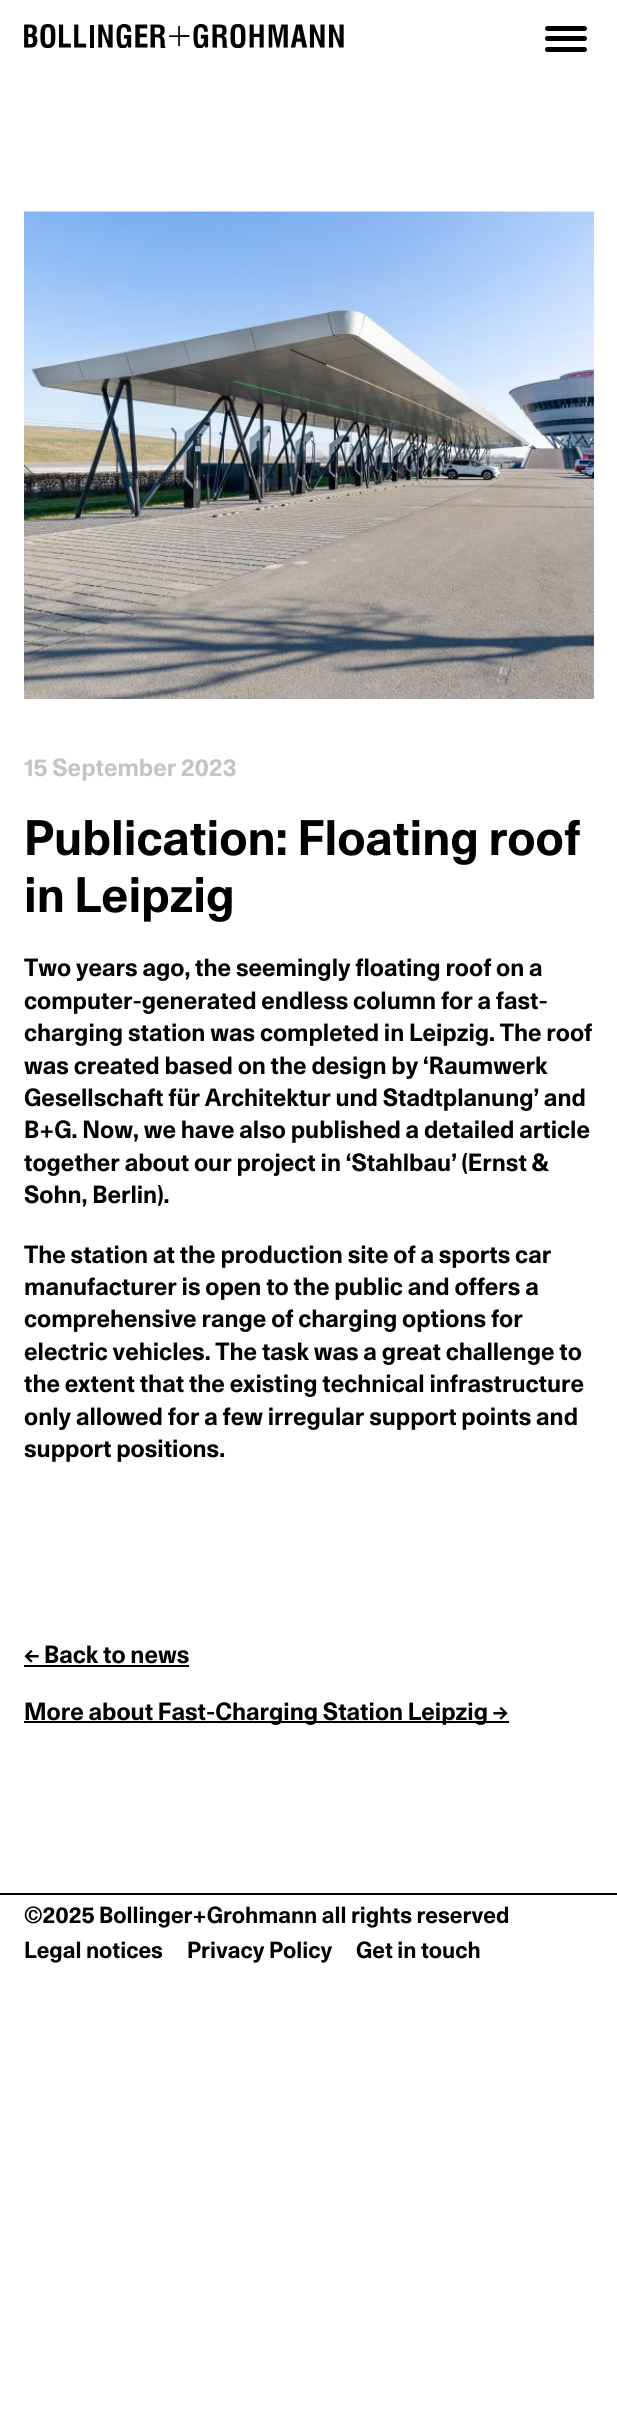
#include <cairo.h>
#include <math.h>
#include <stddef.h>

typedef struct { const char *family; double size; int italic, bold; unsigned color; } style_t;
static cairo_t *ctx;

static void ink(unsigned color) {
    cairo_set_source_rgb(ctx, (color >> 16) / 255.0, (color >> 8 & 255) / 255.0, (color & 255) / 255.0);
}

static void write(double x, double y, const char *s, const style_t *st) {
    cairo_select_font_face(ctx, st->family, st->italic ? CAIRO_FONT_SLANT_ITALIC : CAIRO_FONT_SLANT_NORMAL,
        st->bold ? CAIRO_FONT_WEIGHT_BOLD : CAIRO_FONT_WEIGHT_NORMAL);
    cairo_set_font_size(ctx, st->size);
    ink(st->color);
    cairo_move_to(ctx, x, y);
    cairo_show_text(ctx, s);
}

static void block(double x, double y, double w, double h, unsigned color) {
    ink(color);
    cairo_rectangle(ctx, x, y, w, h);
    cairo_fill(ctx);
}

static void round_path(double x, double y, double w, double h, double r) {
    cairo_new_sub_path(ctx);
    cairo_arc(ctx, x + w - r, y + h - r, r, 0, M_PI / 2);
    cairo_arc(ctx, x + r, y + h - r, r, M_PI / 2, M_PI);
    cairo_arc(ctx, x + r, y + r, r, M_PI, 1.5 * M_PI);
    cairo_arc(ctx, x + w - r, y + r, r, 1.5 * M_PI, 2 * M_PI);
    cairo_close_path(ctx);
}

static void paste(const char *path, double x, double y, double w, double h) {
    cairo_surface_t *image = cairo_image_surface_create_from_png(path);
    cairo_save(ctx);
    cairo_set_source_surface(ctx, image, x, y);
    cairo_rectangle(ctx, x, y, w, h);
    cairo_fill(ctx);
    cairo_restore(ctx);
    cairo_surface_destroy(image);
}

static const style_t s1 = {"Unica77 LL", 24, 0, 1, 0xc4c4c4};
static const style_t s2 = {"Unica77 LL", 48, 0, 1, 0x000000};
static const style_t s3 = {"Unica77 LL", 24, 0, 1, 0x000000};
static const style_t s4 = {"Unica77 LL", 22.5, 0, 1, 0x000000};

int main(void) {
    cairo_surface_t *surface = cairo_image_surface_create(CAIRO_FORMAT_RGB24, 617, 2423);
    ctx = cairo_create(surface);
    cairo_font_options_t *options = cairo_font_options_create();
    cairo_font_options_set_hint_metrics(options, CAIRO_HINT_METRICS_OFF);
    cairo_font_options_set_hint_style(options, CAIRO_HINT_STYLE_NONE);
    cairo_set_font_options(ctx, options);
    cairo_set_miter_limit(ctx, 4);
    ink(0xffffff);
    cairo_paint(ctx);
    paste("pic1.png", 24, 24, 320, 24);
    ink(0x000000);
    round_path(545, 36, 42, 5, 2.5);
    cairo_fill(ctx);
    round_path(545, 26, 42, 5, 2.5);
    cairo_fill(ctx);
    round_path(545, 47, 42, 5, 2.5);
    cairo_fill(ctx);
    paste("pic2.png", 24, 211, 570, 488);
    write(24, 776, "15 September 2023", &s1);
    write(24, 855, "Publication: Floating roof", &s2);
    write(24, 912, "in Leipzig", &s2);
    write(24, 976, "Two years ago, the seemingly floating roof on a", &s3);
    write(24, 1009, "computer-generated endless column for a fast-", &s3);
    write(24, 1041, "charging station was completed in Leipzig. The roof", &s3);
    write(24, 1074, "was created based on the design by ‘Raumwerk", &s3);
    write(24, 1106, "Gesellschaft für Architektur und Stadtplanung’ and", &s3);
    write(24, 1138, "B+G. Now, we have also published a detailed article", &s3);
    write(24, 1171, "together about our project in ‘Stahlbau’ (Ernst &", &s3);
    write(24, 1203, "Sohn, Berlin).", &s3);
    write(24, 1263, "The station at the production site of a sports car", &s3);
    write(24, 1295, "manufacturer is open to the public and offers a", &s3);
    write(24, 1327, "comprehensive range of charging options for", &s3);
    write(24, 1360, "electric vehicles. The task was a great challenge to", &s3);
    write(24, 1392, "the extent that the existing technical infrastructure", &s3);
    write(24, 1425, "only allowed for a few irregular support points and", &s3);
    write(24, 1457, "support positions.", &s3);
    write(24, 1663, "← Back to news", &s3);
    block(24, 1665, 165, 2, 0x000000);
    block(24, 1721, 485, 2, 0x000000);
    write(24, 1720, "More about Fast-Charging Station Leipzig →", &s3);
    block(0, 1893, 617, 2, 0x000000);
    write(24, 1923, "©2025 Bollinger+Grohmann all rights reserved", &s4);
    write(24, 1958, "Legal notices", &s4);
    write(187, 1958, "Privacy Policy", &s4);
    write(356, 1958, "Get in touch", &s4);
    cairo_surface_write_to_png(surface, "screenshot.png");
    cairo_font_options_destroy(options);
    cairo_destroy(ctx);
    cairo_surface_destroy(surface);
    return 0;
}
